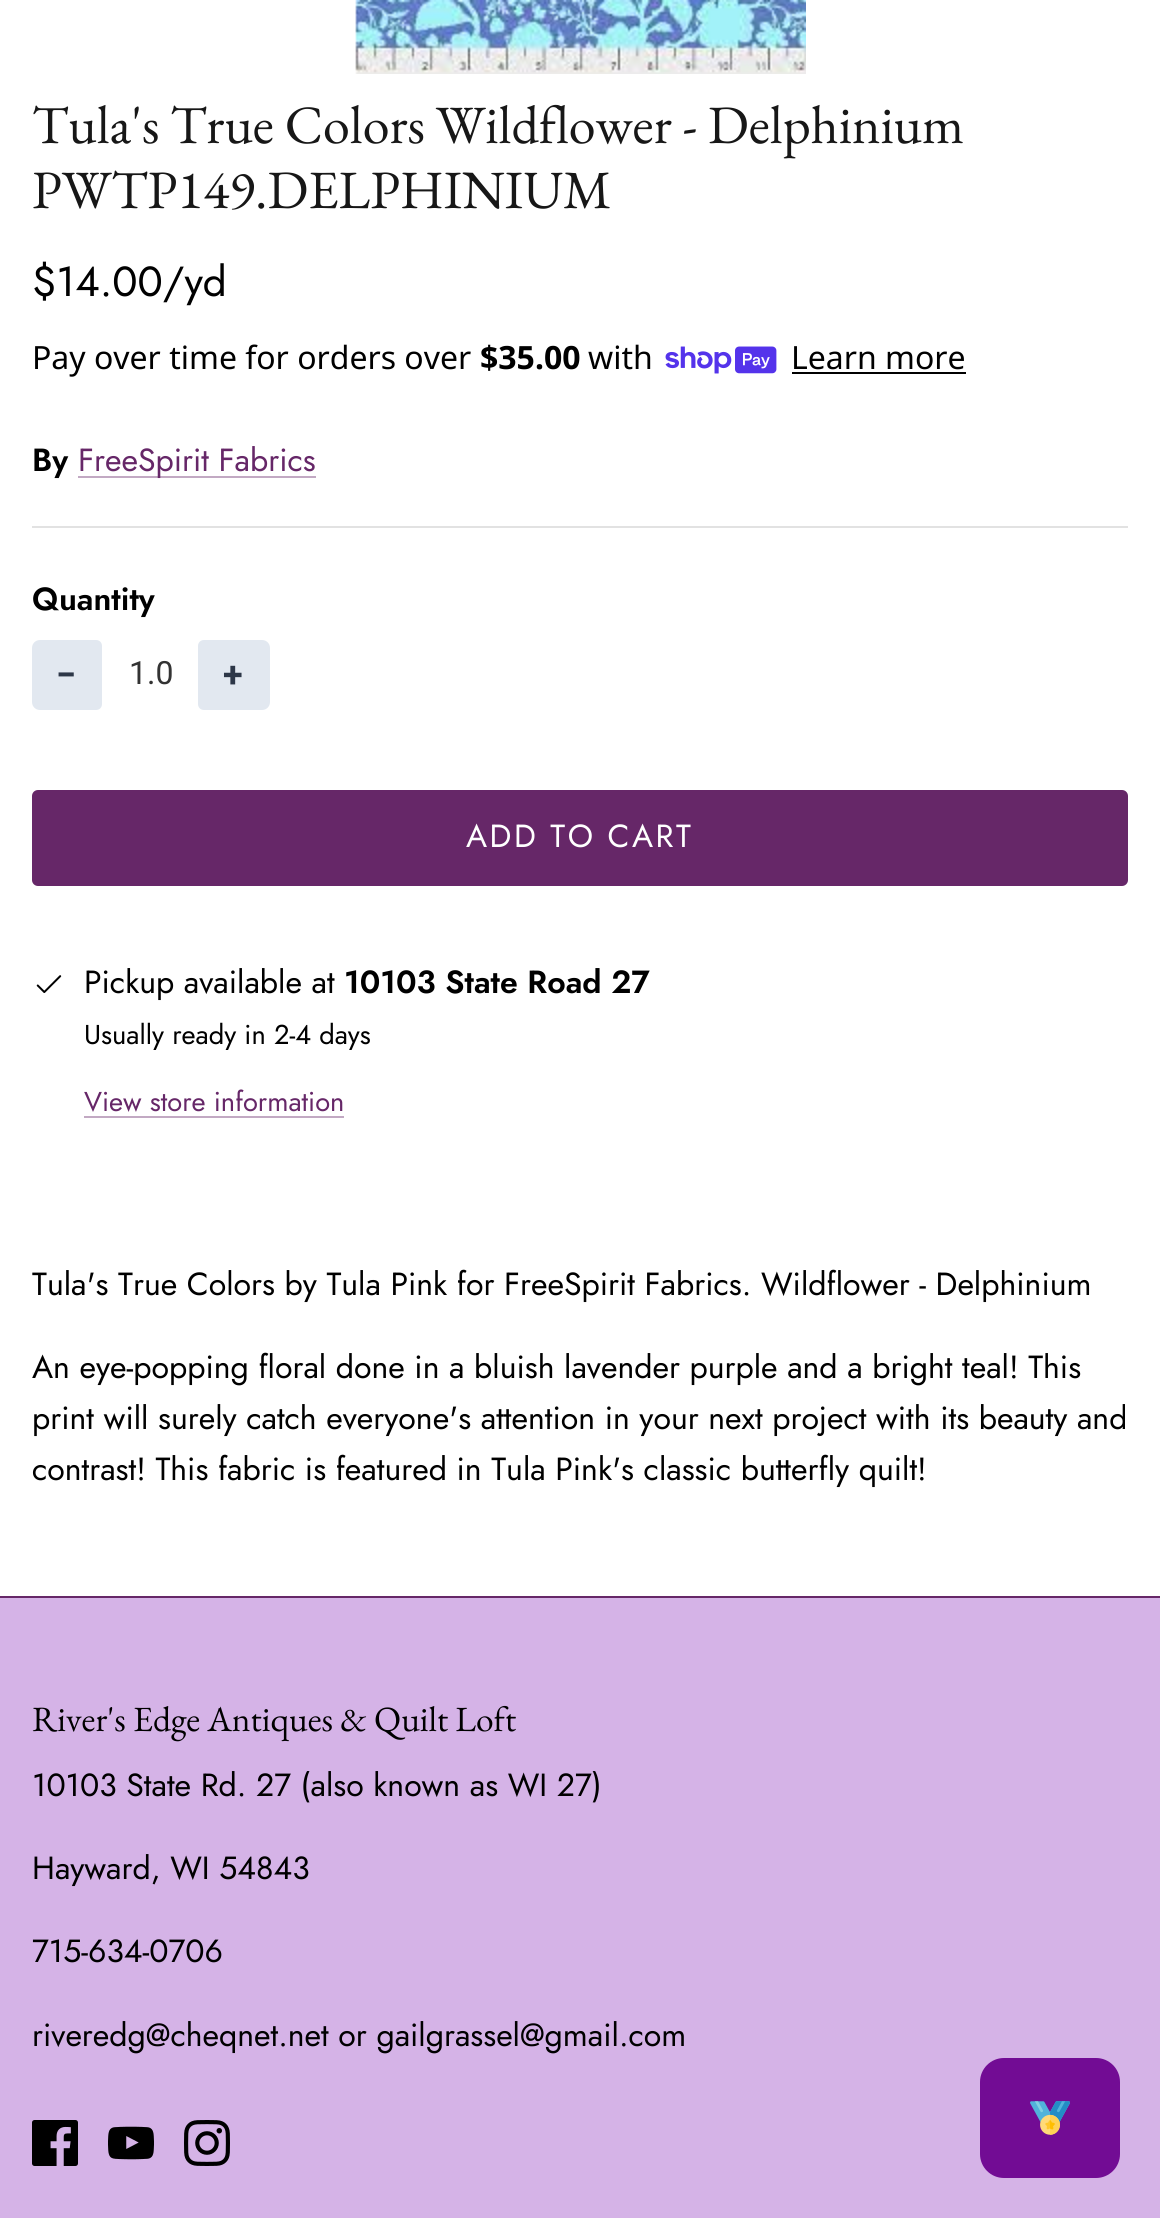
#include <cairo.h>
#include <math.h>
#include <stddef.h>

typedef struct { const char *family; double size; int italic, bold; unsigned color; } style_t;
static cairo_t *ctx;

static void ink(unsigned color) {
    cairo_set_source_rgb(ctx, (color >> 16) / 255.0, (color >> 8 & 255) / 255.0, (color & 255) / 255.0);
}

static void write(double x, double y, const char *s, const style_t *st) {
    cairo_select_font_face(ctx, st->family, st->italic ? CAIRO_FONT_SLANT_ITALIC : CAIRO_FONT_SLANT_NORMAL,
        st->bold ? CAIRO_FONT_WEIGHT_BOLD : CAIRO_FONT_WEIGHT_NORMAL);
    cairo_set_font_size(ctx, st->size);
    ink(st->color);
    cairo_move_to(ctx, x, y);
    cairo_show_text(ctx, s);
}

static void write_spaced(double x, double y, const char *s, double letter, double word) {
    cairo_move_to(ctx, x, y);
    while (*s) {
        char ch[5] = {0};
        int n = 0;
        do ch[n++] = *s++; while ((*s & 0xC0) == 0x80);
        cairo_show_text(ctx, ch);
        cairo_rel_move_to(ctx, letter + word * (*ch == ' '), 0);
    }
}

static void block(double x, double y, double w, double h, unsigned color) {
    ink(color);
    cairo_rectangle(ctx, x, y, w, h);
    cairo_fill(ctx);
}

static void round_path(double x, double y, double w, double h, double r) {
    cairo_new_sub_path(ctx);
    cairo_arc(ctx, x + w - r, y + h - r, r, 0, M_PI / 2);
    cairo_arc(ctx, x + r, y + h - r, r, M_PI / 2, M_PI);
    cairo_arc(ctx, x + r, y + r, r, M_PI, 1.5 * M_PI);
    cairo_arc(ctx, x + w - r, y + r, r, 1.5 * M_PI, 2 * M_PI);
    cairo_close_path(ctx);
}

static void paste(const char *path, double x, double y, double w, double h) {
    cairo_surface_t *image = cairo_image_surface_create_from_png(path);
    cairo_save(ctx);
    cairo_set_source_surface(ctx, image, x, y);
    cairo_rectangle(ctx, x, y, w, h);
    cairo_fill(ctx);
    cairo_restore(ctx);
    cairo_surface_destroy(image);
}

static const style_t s1 = {"EB Garamond", 54, 0, 0, 0x171717};
static const style_t s2 = {"Jost", 42, 0, 0, 0x000000};
static const style_t s3 = {"Noto Sans", 32, 0, 0, 0x000000};
static const style_t s4 = {"Noto Sans", 32, 0, 1, 0x000000};
static const style_t s5 = {"Jost SemiBold", 32, 0, 0, 0x000000};
static const style_t s6 = {"Jost", 32, 0, 0, 0x662768};
static const style_t s7 = {"Roboto", 32, 0, 0, 0x333333};
static const style_t s8 = {"Jost", 32, 0, 0, 0x000000};
static const style_t s9 = {"Jost", 27.25, 0, 0, 0x000000};
static const style_t s10 = {"Jost", 27.25, 0, 0, 0x662768};
static const style_t s11 = {"EB Garamond", 35.5, 0, 0, 0x000000};

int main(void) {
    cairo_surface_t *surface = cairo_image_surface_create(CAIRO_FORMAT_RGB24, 1160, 2218);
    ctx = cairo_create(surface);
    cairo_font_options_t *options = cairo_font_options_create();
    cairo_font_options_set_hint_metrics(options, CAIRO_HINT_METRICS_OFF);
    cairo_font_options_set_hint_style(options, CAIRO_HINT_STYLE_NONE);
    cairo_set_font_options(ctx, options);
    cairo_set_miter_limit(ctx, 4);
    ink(0xffffff);
    cairo_paint(ctx);
    paste("pic1.png", 355, 0, 451, 74);
    write(32, 143, "Tula's True Colors Wildflower - Delphinium", &s1);
    write(32, 208, "PWTP149.DELPHINIUM", &s1);
    write(32, 296, "$14.00/yd", &s2);
    write(32, 369, "Pay over time for orders over", &s3);
    write(480, 369, "$35.00", &s4);
    write(588, 369, "with", &s3);
    paste("pic2.png", 665, 346, 112, 28);
    write(791, 369, "Learn more", &s3);
    block(792, 372, 174, 2, 0x000000);
    write(32, 471, "By", &s5);
    block(78, 476, 238, 2, 0xc2a9c3);
    write(78, 471, "FreeSpirit Fabrics", &s6);
    block(32, 526, 1096, 2, 0xe2e2e2);
    write(32, 610, "Quantity", &s5);
    ink(0xe2e8f0);
    cairo_new_path(ctx);
    cairo_move_to(ctx, 40, 640);
    cairo_line_to(ctx, 96, 640);
    cairo_curve_to(ctx, 99.5, 640, 102, 642.5, 102, 646);
    cairo_line_to(ctx, 102, 704);
    cairo_curve_to(ctx, 102, 707.5, 99.5, 710, 96, 710);
    cairo_line_to(ctx, 40, 710);
    cairo_curve_to(ctx, 35.5, 710, 32, 706.5, 32, 702);
    cairo_line_to(ctx, 32, 648);
    cairo_curve_to(ctx, 32, 643.5, 35.5, 640, 40, 640);
    cairo_close_path(ctx);
    cairo_fill(ctx);
    cairo_select_font_face(ctx, "Roboto", CAIRO_FONT_SLANT_NORMAL, CAIRO_FONT_WEIGHT_BOLD);
    cairo_set_font_size(ctx, 36);
    ink(0x2d3748);
    write_spaced(56, 687, "−", 3, 0);
    write(129, 684, "1.0", &s7);
    ink(0xe2e8f0);
    cairo_new_path(ctx);
    cairo_move_to(ctx, 204, 640);
    cairo_line_to(ctx, 262, 640);
    cairo_curve_to(ctx, 266.5, 640, 270, 643.5, 270, 648);
    cairo_line_to(ctx, 270, 702);
    cairo_curve_to(ctx, 270, 706.5, 266.5, 710, 262, 710);
    cairo_line_to(ctx, 204, 710);
    cairo_curve_to(ctx, 200.5, 710, 198, 707.5, 198, 704);
    cairo_line_to(ctx, 198, 646);
    cairo_curve_to(ctx, 198, 642.5, 200.5, 640, 204, 640);
    cairo_close_path(ctx);
    cairo_fill(ctx);
    cairo_select_font_face(ctx, "Roboto", CAIRO_FONT_SLANT_NORMAL, CAIRO_FONT_WEIGHT_BOLD);
    cairo_set_font_size(ctx, 36);
    ink(0x2d3748);
    write_spaced(223, 687, "+", 3, 0);
    ink(0x662768);
    round_path(33, 791, 1094, 94, 5);
    cairo_fill_preserve(ctx);
    cairo_stroke(ctx);
    cairo_select_font_face(ctx, "Jost", CAIRO_FONT_SLANT_NORMAL, CAIRO_FONT_WEIGHT_NORMAL);
    cairo_set_font_size(ctx, 32);
    ink(0xffffff);
    write_spaced(466, 847, "ADD TO CART", 2.5, 0);
    paste("pic3.png", 36, 975, 26, 18);
    write(84, 993, "Pickup available at", &s8);
    write(344, 993, "10103 State Road 27", &s5);
    write(84, 1044, "Usually ready in 2-4 days", &s9);
    write(84, 1111, "View store information", &s10);
    block(84, 1116, 260, 2, 0xc2a9c3);
    write(32, 1295, "Tula's True Colors by Tula Pink for FreeSpirit Fabrics. Wildflower - Delphinium", &s8);
    write(32, 1378, "An eye-popping floral done in a bluish lavender purple and a bright teal! This", &s8);
    write(32, 1429, "print will surely catch everyone's attention in your next project with its beauty and", &s8);
    write(32, 1480, "contrast! This fabric is featured in Tula Pink's classic butterfly quilt!", &s8);
    block(0, 1598, 1160, 620, 0xd5b3e7);
    block(0, 1596, 1160, 2, 0x662768);
    write(32, 1731, "River's Edge Antiques & Quilt Loft", &s11);
    write(32, 1796, "10103 State Rd. 27 (also known as WI 27)", &s8);
    write(32, 1879, "Hayward, WI 54843", &s8);
    write(32, 1962, "715-634-0706", &s8);
    write(32, 2046, "riveredg@cheqnet.net or gailgrassel@gmail.com", &s8);
    paste("pic4.png", 32, 2120, 46, 46);
    paste("pic5.png", 108, 2126, 46, 34);
    paste("pic6.png", 184, 2120, 46, 46);
    ink(0x720c94);
    round_path(980, 2058, 140, 120, 24);
    cairo_fill(ctx);
    paste("pic7.png", 1030, 2101, 40, 34);
    cairo_surface_write_to_png(surface, "screenshot.png");
    cairo_font_options_destroy(options);
    cairo_destroy(ctx);
    cairo_surface_destroy(surface);
    return 0;
}
